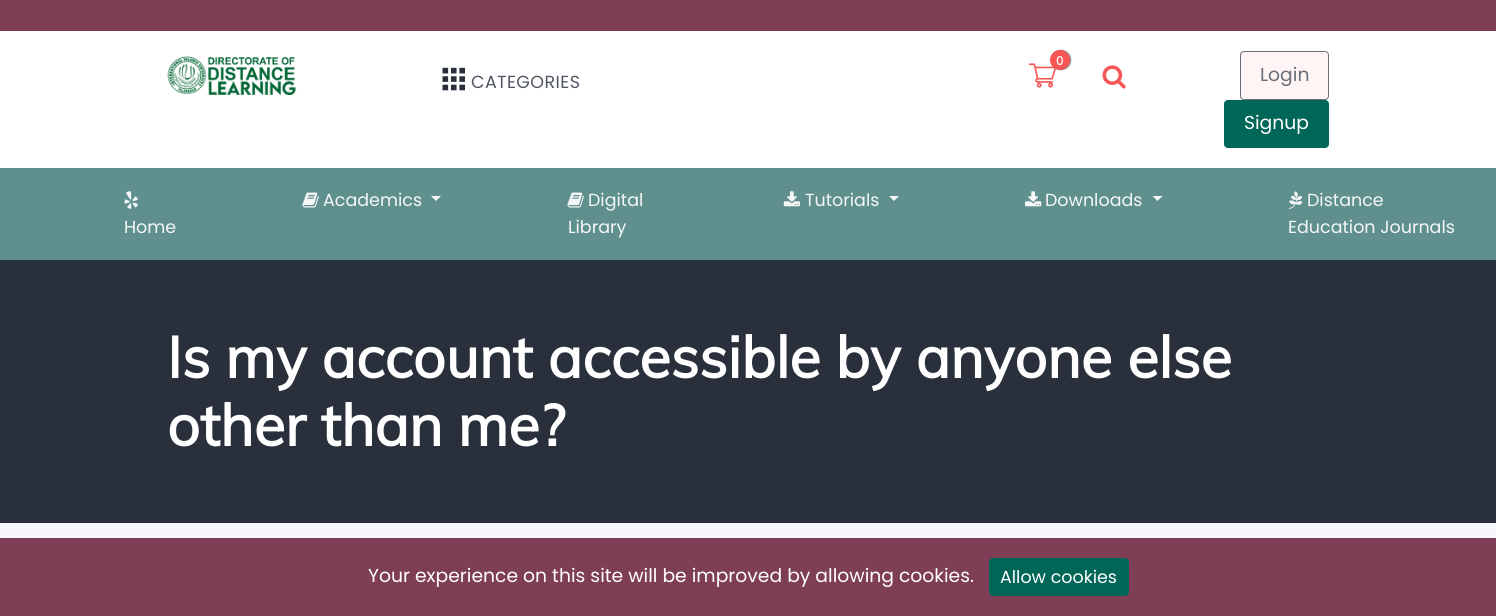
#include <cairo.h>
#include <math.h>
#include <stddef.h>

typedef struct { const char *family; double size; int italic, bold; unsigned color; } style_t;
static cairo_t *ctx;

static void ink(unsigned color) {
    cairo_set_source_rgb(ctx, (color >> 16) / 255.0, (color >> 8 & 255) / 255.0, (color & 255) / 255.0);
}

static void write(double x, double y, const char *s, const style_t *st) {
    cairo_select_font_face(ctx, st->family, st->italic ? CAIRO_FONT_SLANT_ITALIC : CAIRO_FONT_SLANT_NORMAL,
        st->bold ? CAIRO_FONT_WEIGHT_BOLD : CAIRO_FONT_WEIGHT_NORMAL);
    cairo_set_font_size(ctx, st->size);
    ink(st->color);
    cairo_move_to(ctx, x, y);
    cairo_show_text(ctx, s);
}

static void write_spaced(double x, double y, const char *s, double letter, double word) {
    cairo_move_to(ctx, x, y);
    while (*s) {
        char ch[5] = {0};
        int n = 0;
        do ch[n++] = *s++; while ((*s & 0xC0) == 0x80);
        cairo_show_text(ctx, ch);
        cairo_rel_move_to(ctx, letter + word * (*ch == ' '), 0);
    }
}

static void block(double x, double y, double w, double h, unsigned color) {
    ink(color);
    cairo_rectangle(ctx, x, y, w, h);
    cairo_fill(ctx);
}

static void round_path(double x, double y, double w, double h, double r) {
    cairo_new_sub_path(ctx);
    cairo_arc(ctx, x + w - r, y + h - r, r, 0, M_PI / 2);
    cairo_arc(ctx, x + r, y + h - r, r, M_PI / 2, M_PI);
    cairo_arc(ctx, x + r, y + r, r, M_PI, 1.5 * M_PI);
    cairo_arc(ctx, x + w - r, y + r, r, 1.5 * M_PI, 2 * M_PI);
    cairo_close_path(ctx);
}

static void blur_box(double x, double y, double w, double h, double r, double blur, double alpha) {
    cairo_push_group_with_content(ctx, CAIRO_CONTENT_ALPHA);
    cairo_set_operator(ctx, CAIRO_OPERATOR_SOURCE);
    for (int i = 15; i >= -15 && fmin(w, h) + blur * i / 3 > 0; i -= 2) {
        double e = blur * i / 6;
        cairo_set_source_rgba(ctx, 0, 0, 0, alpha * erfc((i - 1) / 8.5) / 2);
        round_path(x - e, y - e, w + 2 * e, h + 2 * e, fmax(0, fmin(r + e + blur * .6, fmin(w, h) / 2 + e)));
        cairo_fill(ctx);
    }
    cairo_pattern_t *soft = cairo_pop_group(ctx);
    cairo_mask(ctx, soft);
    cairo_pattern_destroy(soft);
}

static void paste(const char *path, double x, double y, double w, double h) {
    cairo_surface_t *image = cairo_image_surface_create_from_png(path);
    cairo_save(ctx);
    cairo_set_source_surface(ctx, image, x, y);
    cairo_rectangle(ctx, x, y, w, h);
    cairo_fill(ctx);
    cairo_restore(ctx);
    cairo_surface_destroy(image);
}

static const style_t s1 = {"Poppins Medium", 12, 0, 0, 0xffffff};
static const style_t s2 = {"Poppins", 18.75, 0, 0, 0x686f7a};
static const style_t s3 = {"Poppins", 18.75, 0, 0, 0xffffff};
static const style_t s4 = {"Poppins", 17.5, 0, 0, 0xf4f6f7};
static const style_t s5 = {"Muli", 57.5, 0, 1, 0xffffff};
static const style_t s6 = {"Poppins", 17.5, 0, 0, 0xffffff};

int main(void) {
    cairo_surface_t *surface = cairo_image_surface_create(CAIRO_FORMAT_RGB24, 1496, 616);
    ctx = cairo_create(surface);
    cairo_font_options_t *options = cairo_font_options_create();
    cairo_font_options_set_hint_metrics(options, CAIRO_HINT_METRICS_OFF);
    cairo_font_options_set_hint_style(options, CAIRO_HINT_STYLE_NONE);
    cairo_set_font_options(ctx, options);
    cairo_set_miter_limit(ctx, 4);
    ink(0xffffff);
    cairo_paint(ctx);
    block(0, 0, 1496, 31, 0x7e3e55);
    cairo_save(ctx);
    cairo_set_fill_rule(ctx, CAIRO_FILL_RULE_EVEN_ODD);
    cairo_new_path(ctx);
    cairo_move_to(ctx, 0, 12);
    cairo_line_to(ctx, 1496, 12);
    cairo_line_to(ctx, 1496, 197);
    cairo_line_to(ctx, 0, 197);
    cairo_close_path(ctx);
    cairo_move_to(ctx, 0, 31);
    cairo_line_to(ctx, 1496, 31);
    cairo_line_to(ctx, 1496, 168);
    cairo_line_to(ctx, 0, 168);
    cairo_close_path(ctx);
    cairo_clip(ctx);
    ink(0x000000);
    blur_box(0, 36, 1496, 137, 0, 7.5, 0.08);
    cairo_restore(ctx);
    cairo_save(ctx);
    cairo_set_fill_rule(ctx, CAIRO_FILL_RULE_EVEN_ODD);
    cairo_new_path(ctx);
    cairo_move_to(ctx, 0, 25);
    cairo_line_to(ctx, 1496, 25);
    cairo_line_to(ctx, 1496, 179);
    cairo_line_to(ctx, 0, 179);
    cairo_close_path(ctx);
    cairo_move_to(ctx, 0, 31);
    cairo_line_to(ctx, 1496, 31);
    cairo_line_to(ctx, 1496, 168);
    cairo_line_to(ctx, 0, 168);
    cairo_close_path(ctx);
    cairo_clip(ctx);
    ink(0x000000);
    blur_box(0, 34, 1496, 136, 0, 2.5, 0.08);
    cairo_restore(ctx);
    paste("pic1.png", 167, 56, 130, 39);
    paste("pic2.png", 442, 67, 23, 24);
    cairo_select_font_face(ctx, "Poppins", CAIRO_FONT_SLANT_NORMAL, CAIRO_FONT_WEIGHT_NORMAL);
    cairo_set_font_size(ctx, 17.5);
    ink(0x505763);
    write_spaced(471, 88, "CATEGORIES", 0.4, 0);
    paste("pic3.png", 1028, 63, 28, 25);
    ink(0x000000);
    blur_box(1051, 50, 20, 20, 10, 0.5, 0.5);
    ink(0xf55656);
    cairo_arc(ctx, 1060, 60, 10, 0, 2 * M_PI);
    cairo_fill(ctx);
    write(1056, 65, "0", &s1);
    paste("pic4.png", 1102, 65, 24, 24);
    ink(0xfff5f5);
    round_path(1240.5, 51.5, 88, 48, 3.5);
    cairo_fill_preserve(ctx);
    ink(0x686f7a);
    cairo_set_line_width(ctx, 1);
    cairo_stroke(ctx);
    write(1260, 81, "Login", &s2);
    ink(0x006657);
    round_path(1224, 100, 105, 48, 4);
    cairo_fill(ctx);
    write(1244, 129, "Signup", &s3);
    block(0, 168, 1496, 92, 0x5f908d);
    paste("pic5.png", 302, 192, 17, 16);
    write(323, 206, "Academics", &s4);
    cairo_new_path(ctx);
    cairo_move_to(ctx, 431, 196);
    cairo_line_to(ctx, 441, 196);
    cairo_line_to(ctx, 436, 201);
    cairo_close_path(ctx);
    cairo_fill(ctx);
    paste("pic5.png", 567, 192, 17, 16);
    write(588, 206, "Digital", &s4);
    write(568, 233, "Library", &s4);
    paste("pic6.png", 783, 191, 17, 16);
    write(805, 206, "Tutorials", &s4);
    cairo_new_path(ctx);
    cairo_move_to(ctx, 889, 196);
    cairo_line_to(ctx, 899, 196);
    cairo_line_to(ctx, 894, 201);
    cairo_close_path(ctx);
    cairo_fill(ctx);
    paste("pic7.png", 1025, 191, 17, 16);
    write(1045, 206, "Downloads", &s4);
    cairo_new_path(ctx);
    cairo_move_to(ctx, 1152.5, 196);
    cairo_line_to(ctx, 1162.5, 196);
    cairo_line_to(ctx, 1157.5, 201);
    cairo_close_path(ctx);
    cairo_fill(ctx);
    paste("pic8.png", 1288, 191, 15, 18);
    write(1307, 206, "Distance", &s4);
    write(1288, 233, "Education Journals", &s4);
    paste("pic9.png", 124, 191, 14, 18);
    write(124, 233, "Home", &s4);
    block(0, 260, 1496, 263, 0x29303b);
    write(167, 378, "Is my account accessible by anyone else", &s5);
    write(167, 446, "other than me?", &s5);
    block(0, 523, 1496, 15, 0xf6f7fc);
    block(0, 538, 1496, 78, 0x7e3e55);
    write(368, 582, "Your experience on this site will be improved by allowing cookies.", &s3);
    ink(0x006657);
    round_path(989.5, 558.5, 139, 37, 3.5);
    cairo_fill_preserve(ctx);
    cairo_stroke(ctx);
    write(1000, 583, "Allow cookies", &s6);
    cairo_surface_write_to_png(surface, "screenshot.png");
    cairo_font_options_destroy(options);
    cairo_destroy(ctx);
    cairo_surface_destroy(surface);
    return 0;
}
